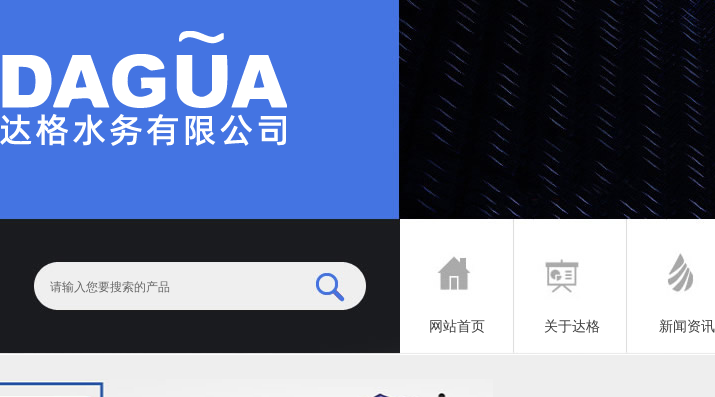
#include <cairo.h>
#include <math.h>
#include <stddef.h>

typedef struct { const char *family; double size; int italic, bold; unsigned color; } style_t;
static cairo_t *ctx;

static void ink(unsigned color) {
    cairo_set_source_rgb(ctx, (color >> 16) / 255.0, (color >> 8 & 255) / 255.0, (color & 255) / 255.0);
}

static void write(double x, double y, const char *s, const style_t *st) {
    cairo_select_font_face(ctx, st->family, st->italic ? CAIRO_FONT_SLANT_ITALIC : CAIRO_FONT_SLANT_NORMAL,
        st->bold ? CAIRO_FONT_WEIGHT_BOLD : CAIRO_FONT_WEIGHT_NORMAL);
    cairo_set_font_size(ctx, st->size);
    ink(st->color);
    cairo_move_to(ctx, x, y);
    cairo_show_text(ctx, s);
}

static void block(double x, double y, double w, double h, unsigned color) {
    ink(color);
    cairo_rectangle(ctx, x, y, w, h);
    cairo_fill(ctx);
}

static void paste(const char *path, double x, double y, double w, double h) {
    cairo_surface_t *image = cairo_image_surface_create_from_png(path);
    cairo_save(ctx);
    cairo_set_source_surface(ctx, image, x, y);
    cairo_rectangle(ctx, x, y, w, h);
    cairo_fill(ctx);
    cairo_restore(ctx);
    cairo_surface_destroy(image);
}

static const style_t s1 = {"WenQuanYi Zen Hei Medium", 12, 0, 0, 0x666666};
static const style_t s2 = {"WenQuanYi Zen Hei Medium", 14, 0, 0, 0x3d3d3d};

int main(void) {
    cairo_surface_t *surface = cairo_image_surface_create(CAIRO_FORMAT_RGB24, 715, 397);
    ctx = cairo_create(surface);
    cairo_font_options_t *options = cairo_font_options_create();
    cairo_font_options_set_hint_metrics(options, CAIRO_HINT_METRICS_OFF);
    cairo_font_options_set_hint_style(options, CAIRO_HINT_STYLE_NONE);
    cairo_set_font_options(ctx, options);
    cairo_set_miter_limit(ctx, 4);
    ink(0xffffff);
    cairo_paint(ctx);
    paste("pic1.png", 0, 0, 715, 354);
    paste("pic2.png", 0, 31, 287, 115);
    write(50, 291, "请输入您要搜索的产品", &s1);
    write(429, 331, "网站首页", &s2);
    write(544, 331, "关于达格", &s2);
    write(659, 331, "新闻资讯", &s2);
    block(0, 355, 715, 42, 0xeeeeee);
    paste("pic3.png", 0, 379, 493, 18);
    cairo_surface_write_to_png(surface, "screenshot.png");
    cairo_font_options_destroy(options);
    cairo_destroy(ctx);
    cairo_surface_destroy(surface);
    return 0;
}
